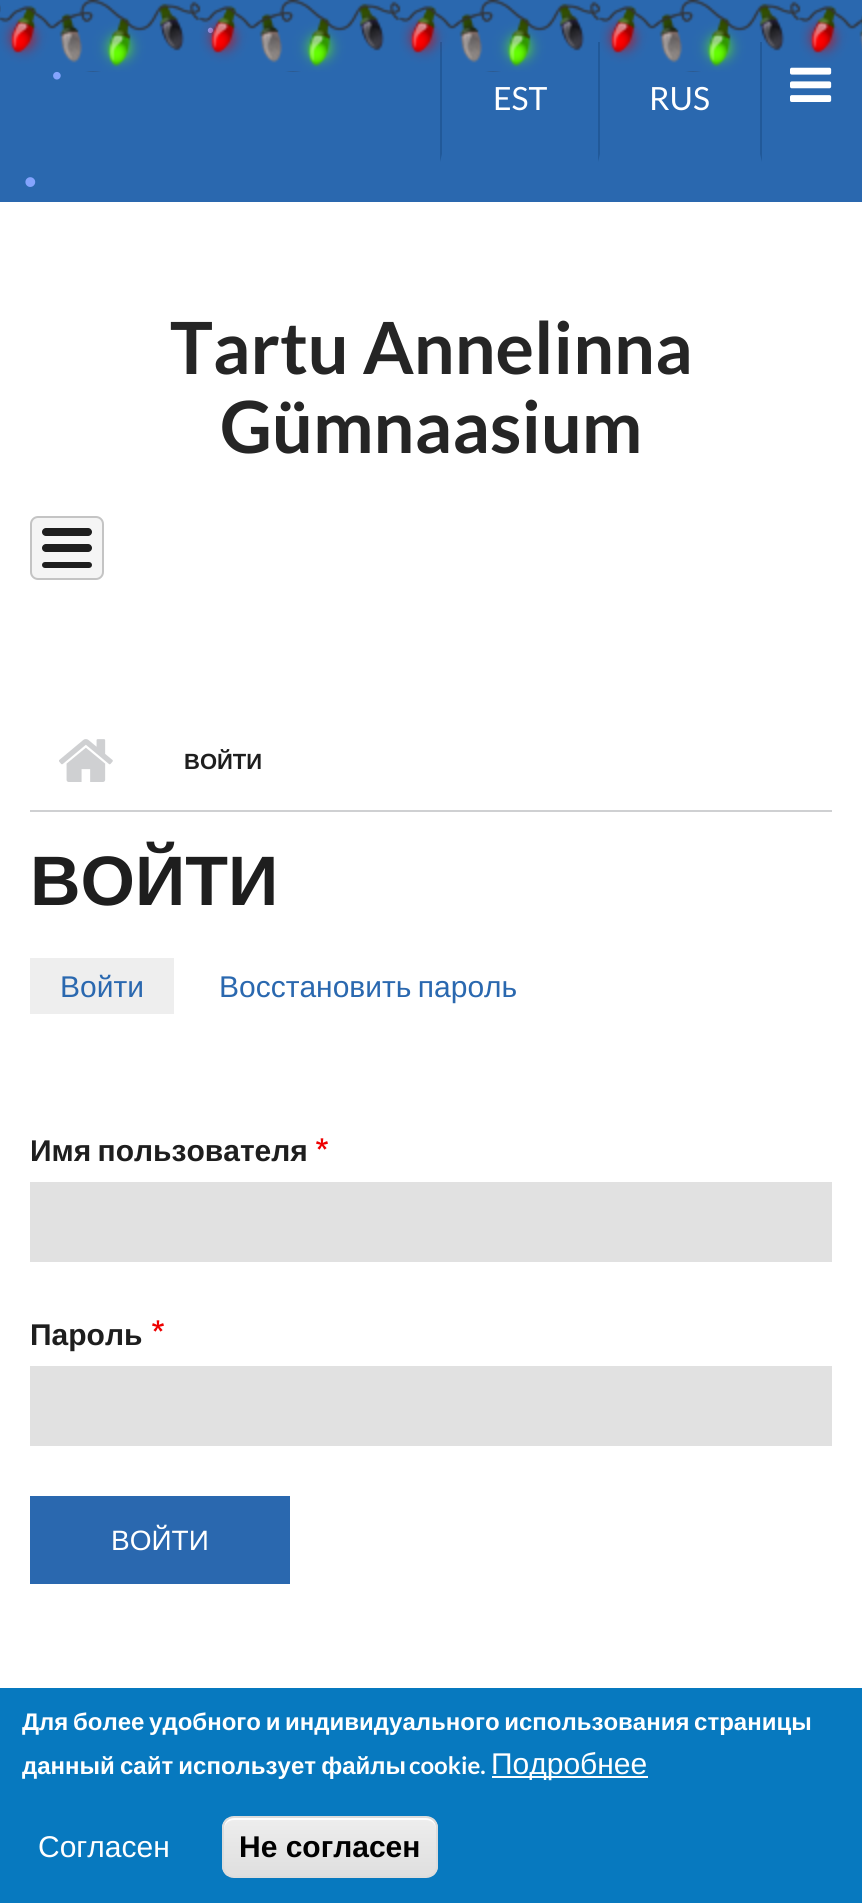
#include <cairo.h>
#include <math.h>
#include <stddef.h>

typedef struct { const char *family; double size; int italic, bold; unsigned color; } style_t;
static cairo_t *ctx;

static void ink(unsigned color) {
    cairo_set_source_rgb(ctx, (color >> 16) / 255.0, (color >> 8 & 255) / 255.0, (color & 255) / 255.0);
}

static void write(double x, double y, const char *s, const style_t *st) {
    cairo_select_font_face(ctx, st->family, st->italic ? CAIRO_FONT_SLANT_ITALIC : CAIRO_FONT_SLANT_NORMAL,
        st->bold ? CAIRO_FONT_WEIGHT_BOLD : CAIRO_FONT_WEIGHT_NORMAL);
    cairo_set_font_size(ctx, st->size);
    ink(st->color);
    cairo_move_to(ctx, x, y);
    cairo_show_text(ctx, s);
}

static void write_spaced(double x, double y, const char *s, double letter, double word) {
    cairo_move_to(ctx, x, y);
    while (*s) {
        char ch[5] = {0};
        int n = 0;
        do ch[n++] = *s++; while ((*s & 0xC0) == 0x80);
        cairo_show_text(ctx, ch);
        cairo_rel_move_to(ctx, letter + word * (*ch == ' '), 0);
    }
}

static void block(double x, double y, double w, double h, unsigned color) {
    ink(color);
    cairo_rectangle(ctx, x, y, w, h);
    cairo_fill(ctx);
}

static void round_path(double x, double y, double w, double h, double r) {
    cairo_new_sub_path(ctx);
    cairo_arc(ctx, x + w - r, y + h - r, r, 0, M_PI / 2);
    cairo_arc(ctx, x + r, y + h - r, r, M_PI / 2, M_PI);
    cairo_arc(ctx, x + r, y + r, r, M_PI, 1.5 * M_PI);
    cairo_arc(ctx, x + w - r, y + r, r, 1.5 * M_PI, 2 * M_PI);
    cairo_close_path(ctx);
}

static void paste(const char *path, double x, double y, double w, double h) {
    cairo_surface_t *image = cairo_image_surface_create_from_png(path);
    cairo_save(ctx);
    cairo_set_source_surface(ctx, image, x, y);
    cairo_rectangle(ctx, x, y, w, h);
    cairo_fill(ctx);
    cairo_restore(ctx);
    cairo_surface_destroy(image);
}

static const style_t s1 = {"Liberation Sans", 20, 0, 0, 0x84a4fe};
static const style_t s2 = {"Liberation Sans", 28, 0, 0, 0x84a4fe};
static const style_t s3 = {"Liberation Sans", 36, 0, 0, 0x84a4fe};
static const style_t s4 = {"Lato", 32, 0, 0, 0xffffff};
static const style_t s5 = {"Lato", 72, 0, 1, 0x252525};
static const style_t s6 = {"Liberation Sans", 22, 0, 1, 0x1e1e1e};
static const style_t s7 = {"Liberation Sans", 70, 0, 1, 0x1e1e1e};
static const style_t s8 = {"Liberation Sans", 30, 0, 0, 0x2a68af};
static const style_t s9 = {"Liberation Sans", 30, 0, 1, 0x1e1e1e};
static const style_t s10 = {"Liberation Sans", 28, 0, 0, 0xffffff};
static const style_t s11 = {"Lato", 24, 0, 1, 0xffffff};
static const style_t s12 = {"Liberation Sans", 30, 0, 0, 0xffffff};
static const style_t s13 = {"Liberation Sans", 30, 0, 1, 0x000000};

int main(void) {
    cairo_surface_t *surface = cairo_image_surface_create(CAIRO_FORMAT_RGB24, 862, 1903);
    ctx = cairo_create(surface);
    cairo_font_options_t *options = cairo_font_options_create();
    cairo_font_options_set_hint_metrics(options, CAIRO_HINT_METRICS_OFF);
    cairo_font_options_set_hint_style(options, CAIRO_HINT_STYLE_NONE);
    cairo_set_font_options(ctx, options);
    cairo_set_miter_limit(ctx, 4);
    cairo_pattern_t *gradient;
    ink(0xffffff);
    cairo_paint(ctx);
    block(0, 0, 862, 202, 0x2a68af);
    write(207, 37, "•", &s1);
    write(52, 85, "•", &s2);
    ink(0x215999);
    cairo_new_path(ctx);
    cairo_move_to(ctx, 440, 162);
    cairo_line_to(ctx, 440, 42);
    cairo_line_to(ctx, 442, 42);
    cairo_line_to(ctx, 442, 154);
    cairo_close_path(ctx);
    cairo_fill(ctx);
    cairo_new_path(ctx);
    cairo_move_to(ctx, 762, 42);
    cairo_line_to(ctx, 762, 162);
    cairo_line_to(ctx, 760, 154);
    cairo_line_to(ctx, 760, 42);
    cairo_close_path(ctx);
    cairo_fill(ctx);
    cairo_new_path(ctx);
    cairo_move_to(ctx, 598, 162);
    cairo_line_to(ctx, 598, 42);
    cairo_line_to(ctx, 600, 42);
    cairo_line_to(ctx, 600, 154);
    cairo_close_path(ctx);
    cairo_fill(ctx);
    paste("pic2.png", 790, 67, 42, 35);
    paste("pic1.png", 0, 0, 862, 72);
    write(24, 194, "•", &s3);
    write(493, 110, "EST", &s4);
    write(649, 110, "RUS", &s4);
    write(170, 374, "Tartu Annelinna", &s5);
    write(220, 453, "Gümnaasium", &s5);
    ink(0xf5f5f5);
    round_path(30, 516, 74, 64, 8);
    cairo_fill(ctx);
    round_path(31, 517, 72, 62, 7);
    cairo_set_source_rgba(ctx, 0, 0, 0, 0.2);
    cairo_stroke(ctx);
    ink(0x1e1e1e);
    round_path(42, 528, 50, 8, 4);
    cairo_fill(ctx);
    round_path(42, 544, 50, 8, 4);
    cairo_fill(ctx);
    round_path(42, 562, 50, 6, 3);
    cairo_fill(ctx);
    block(30, 810, 802, 2, 0xcfd0d2);
    paste("pic3.png", 59, 739, 54, 43);
    write(184, 769, "ВОЙТИ", &s6);
    write(30, 905, "ВОЙТИ", &s7);
    block(30, 958, 144, 56, 0xeeeeee);
    write(60, 997, "Войти", &s8);
    write_spaced(219, 997, "Восстановить пароль", 0, -2);
    cairo_select_font_face(ctx, "Liberation Sans", CAIRO_FONT_SLANT_NORMAL, CAIRO_FONT_WEIGHT_BOLD);
    ink(0x1e1e1e);
    write_spaced(30, 1161, "Имя пользователя", 0, -2);
    paste("pic4.png", 316, 1138, 12, 12);
    block(30, 1182, 802, 80, 0xe1e1e1);
    write(30, 1345, "Пароль", &s9);
    paste("pic4.png", 152, 1320, 12, 12);
    block(30, 1366, 802, 80, 0xe1e1e1);
    block(30, 1496, 260, 88, 0x2a68af);
    write(111, 1550, "ВОЙТИ", &s10);
    block(0, 1688, 862, 215, 0x0779bf);
    cairo_select_font_face(ctx, "Liberation Sans", CAIRO_FONT_SLANT_NORMAL, CAIRO_FONT_WEIGHT_BOLD);
    cairo_set_font_size(ctx, 24);
    ink(0xffffff);
    write_spaced(22, 1730, "Для более удобного и индивидуального использования страницы", 0, -2);
    write_spaced(22, 1774, "данный сайт использует файлы", 0, -1.5);
    write(409, 1774, "cookie.", &s11);
    block(492, 1776, 156, 2, 0xffffff);
    write(491, 1774, "Подробнее", &s12);
    write(38, 1857, "Согласен", &s12);
    cairo_save(ctx);
    round_path(222, 1816, 216, 62, 12);
    cairo_clip(ctx);
    gradient = cairo_pattern_create_linear(330, 1818, 330, 1876);
    cairo_pattern_add_color_stop_rgba(gradient, 0.05, 0.929, 0.929, 0.929, 1);
    cairo_pattern_add_color_stop_rgba(gradient, 1, 0.875, 0.875, 0.875, 1);
    cairo_set_source(ctx, gradient);
    cairo_pattern_destroy(gradient);
    cairo_rectangle(ctx, 222, 1818, 216, 58);
    cairo_fill(ctx);
    cairo_restore(ctx);
    cairo_new_path(ctx);
    cairo_move_to(ctx, 234, 1820);
    cairo_line_to(ctx, 426, 1820);
    cairo_curve_to(ctx, 432, 1820, 436, 1824, 436, 1830);
    cairo_line_to(ctx, 436, 1828);
    cairo_curve_to(ctx, 436, 1822, 432, 1818, 426, 1818);
    cairo_line_to(ctx, 234, 1818);
    cairo_curve_to(ctx, 228, 1818, 224, 1822, 224, 1828);
    cairo_line_to(ctx, 224, 1830);
    cairo_curve_to(ctx, 224, 1824, 228, 1820, 234, 1820);
    cairo_close_path(ctx);
    cairo_fill(ctx);
    round_path(223, 1817, 214, 60, 11);
    ink(0xdcdcdc);
    cairo_stroke(ctx);
    write(239, 1857, "Не согласен", &s13);
    cairo_surface_write_to_png(surface, "screenshot.png");
    cairo_font_options_destroy(options);
    cairo_destroy(ctx);
    cairo_surface_destroy(surface);
    return 0;
}
